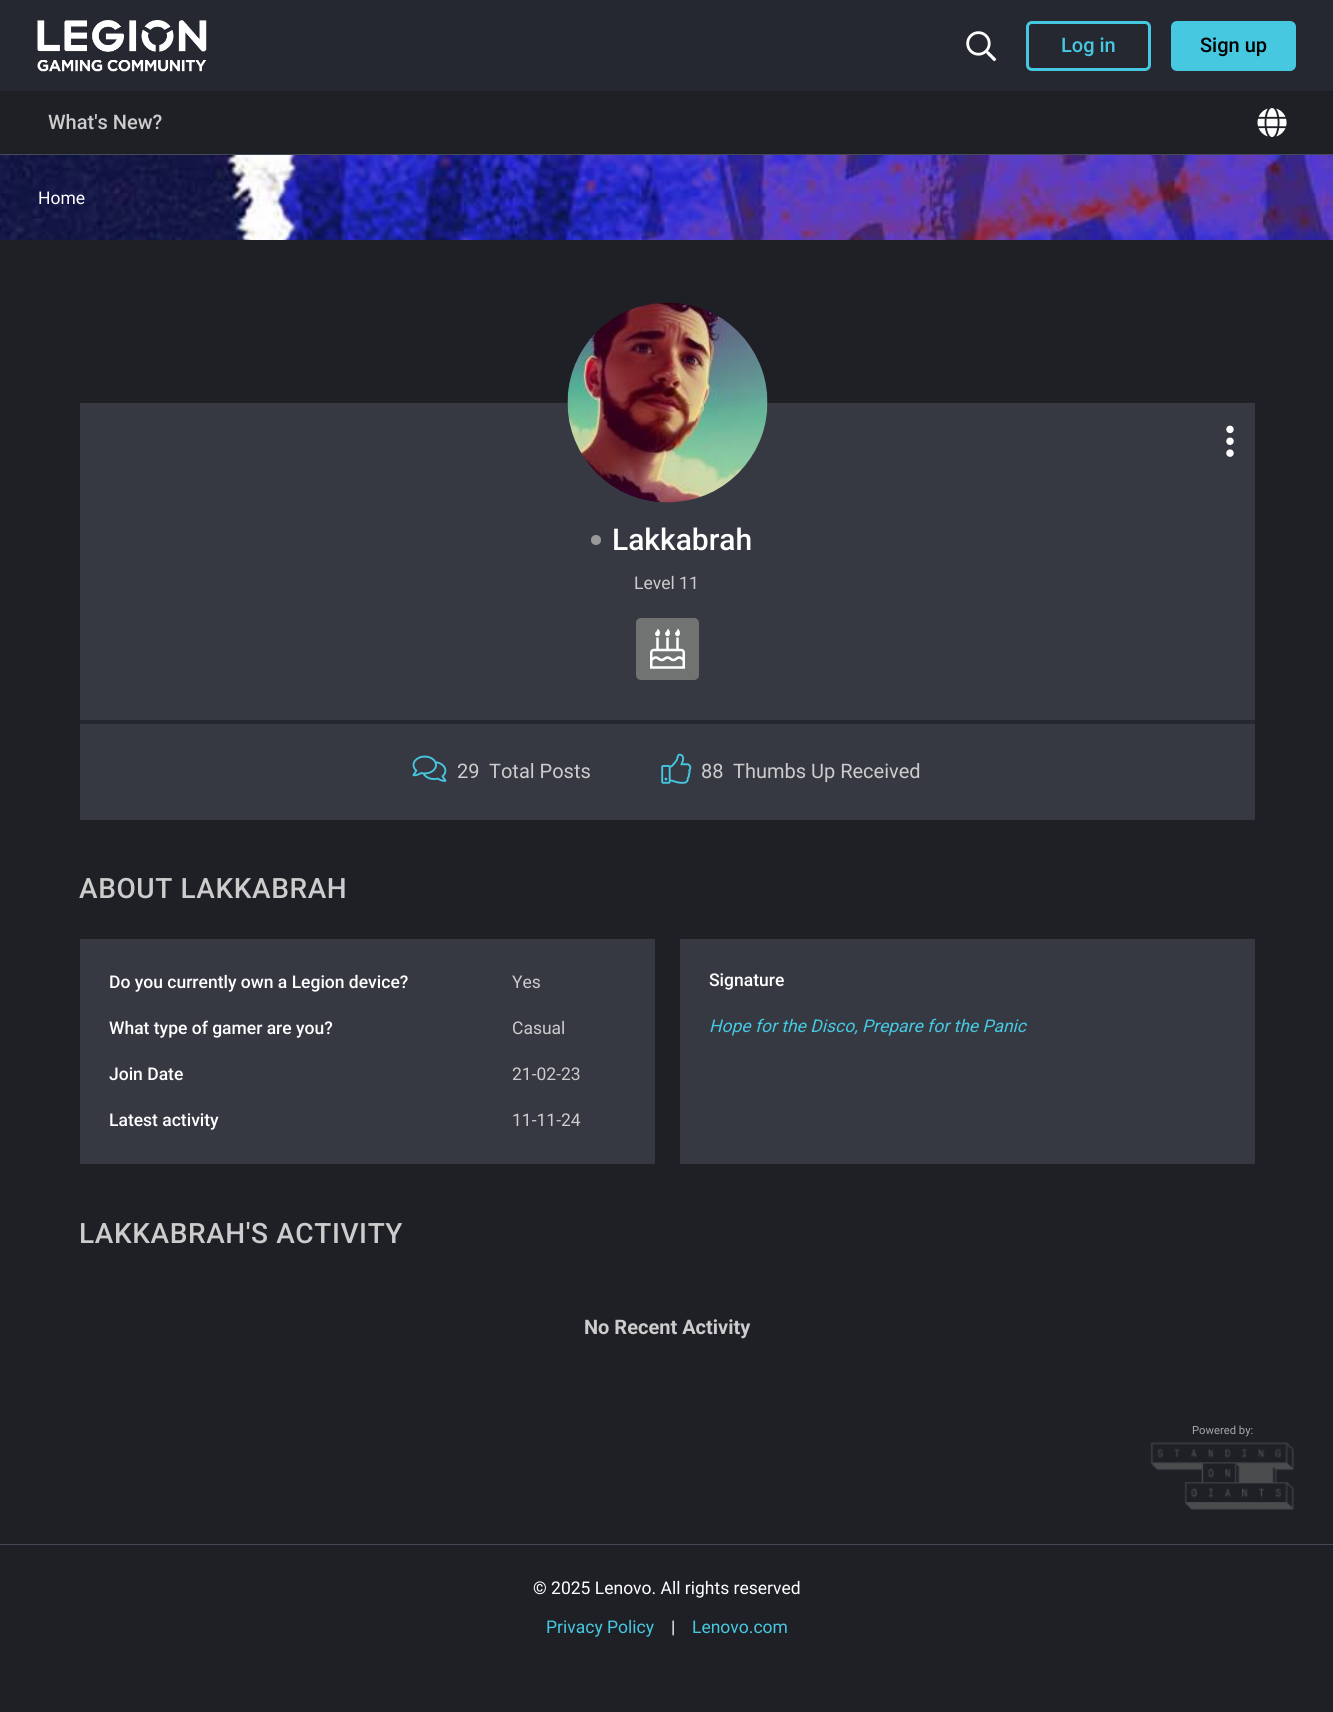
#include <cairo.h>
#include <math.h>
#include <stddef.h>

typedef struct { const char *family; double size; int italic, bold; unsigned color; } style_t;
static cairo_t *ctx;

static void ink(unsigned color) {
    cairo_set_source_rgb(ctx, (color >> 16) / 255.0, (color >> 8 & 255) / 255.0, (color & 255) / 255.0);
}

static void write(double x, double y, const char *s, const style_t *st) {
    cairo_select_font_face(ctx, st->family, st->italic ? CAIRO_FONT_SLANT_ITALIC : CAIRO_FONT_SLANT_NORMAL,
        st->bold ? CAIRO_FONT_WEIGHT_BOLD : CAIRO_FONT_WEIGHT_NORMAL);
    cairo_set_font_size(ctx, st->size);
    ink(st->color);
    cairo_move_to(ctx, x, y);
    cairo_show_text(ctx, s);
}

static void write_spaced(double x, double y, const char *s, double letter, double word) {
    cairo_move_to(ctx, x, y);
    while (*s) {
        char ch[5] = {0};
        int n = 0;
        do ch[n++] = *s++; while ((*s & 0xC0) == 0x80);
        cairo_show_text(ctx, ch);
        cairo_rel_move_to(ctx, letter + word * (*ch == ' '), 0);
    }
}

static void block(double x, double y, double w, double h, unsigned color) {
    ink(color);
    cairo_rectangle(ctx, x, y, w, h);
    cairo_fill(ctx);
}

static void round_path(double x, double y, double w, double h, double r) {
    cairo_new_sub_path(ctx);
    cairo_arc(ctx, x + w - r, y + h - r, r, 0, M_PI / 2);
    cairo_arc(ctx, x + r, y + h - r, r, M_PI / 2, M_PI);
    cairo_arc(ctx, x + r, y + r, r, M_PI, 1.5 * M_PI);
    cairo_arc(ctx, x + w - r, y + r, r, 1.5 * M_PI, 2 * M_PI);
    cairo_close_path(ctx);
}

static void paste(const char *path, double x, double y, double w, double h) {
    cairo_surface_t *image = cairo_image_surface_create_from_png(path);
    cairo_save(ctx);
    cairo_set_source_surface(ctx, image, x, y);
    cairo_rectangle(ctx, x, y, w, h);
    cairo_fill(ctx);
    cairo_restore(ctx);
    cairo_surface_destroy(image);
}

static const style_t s1 = {"Roboto Medium", 20, 0, 0, 0x46c8e1};
static const style_t s2 = {"Roboto Medium", 20, 0, 0, 0x000000};
static const style_t s3 = {"Roboto Medium", 20, 0, 0, 0xcccccc};
static const style_t s4 = {"Roboto", 17.5, 0, 0, 0xffffff};
static const style_t s5 = {"Roboto Medium", 30, 0, 0, 0xffffff};
static const style_t s6 = {"Roboto", 17.5, 0, 0, 0xcccccc};
static const style_t s7 = {"Roboto", 20, 0, 0, 0xcccccc};
static const style_t s8 = {"Roboto Medium", 17.5, 0, 0, 0xffffff};
static const style_t s9 = {"Roboto", 17.5, 1, 0, 0x46c8e1};
static const style_t s10 = {"Roboto", 20, 0, 1, 0xcccccc};
static const style_t s11 = {"Roboto", 11.25, 0, 0, 0xa5a5a5};
static const style_t s12 = {"Roboto", 17.5, 0, 0, 0x46c8e1};

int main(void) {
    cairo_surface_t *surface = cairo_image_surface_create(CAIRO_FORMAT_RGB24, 1333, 1712);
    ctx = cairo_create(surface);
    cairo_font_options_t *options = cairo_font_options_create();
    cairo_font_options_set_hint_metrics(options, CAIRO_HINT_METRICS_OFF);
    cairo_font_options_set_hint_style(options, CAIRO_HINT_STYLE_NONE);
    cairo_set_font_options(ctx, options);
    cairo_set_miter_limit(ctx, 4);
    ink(0x252830);
    cairo_paint(ctx);
    paste("pic1.png", 0, 155, 1333, 85);
    paste("pic2.png", 37, 20, 170, 52);
    paste("pic3.png", 966, 31, 31, 31);
    round_path(1027.5, 22.5, 122, 47, 4.5);
    ink(0x46c8e1);
    cairo_set_line_width(ctx, 3);
    cairo_stroke(ctx);
    write(1061, 52, "Log in", &s1);
    round_path(1172.5, 22.5, 122, 47, 4.5);
    cairo_fill_preserve(ctx);
    cairo_stroke(ctx);
    write(1200, 52, "Sign up", &s2);
    block(0, 91, 1333, 63, 0x1f2026);
    block(0, 154, 1333, 1, 0x454a58);
    write(48, 129, "What's New?", &s3);
    paste("pic4.png", 1257, 108, 30, 29);
    write(38, 204, "Home", &s4);
    block(0, 240, 1333, 1472, 0x1f2026);
    block(80, 403, 1175, 417, 0x363942);
    paste("pic5.png", 567, 302, 201, 201);
    paste("pic6.png", 1226, 425, 8, 32);
    ink(0x999999);
    cairo_arc(ctx, 596, 540, 5, 0, 2 * M_PI);
    cairo_fill(ctx);
    write(612, 550, "Lakkabrah", &s5);
    write(634, 589, "Level 11", &s6);
    ink(0x717372);
    round_path(636, 618, 63, 62, 5);
    cairo_fill(ctx);
    paste("pic7.png", 650, 628, 35, 41);
    block(80, 720, 1175, 4, 0x252830);
    paste("pic8.png", 412, 755, 35, 27);
    write(457, 778, "29", &s7);
    write(489, 778, "Total Posts", &s7);
    paste("pic9.png", 661, 753, 31, 31);
    write(701, 778, "88", &s7);
    write(733, 778, "Thumbs Up Received", &s7);
    cairo_select_font_face(ctx, "Roboto Medium", CAIRO_FONT_SLANT_NORMAL, CAIRO_FONT_WEIGHT_NORMAL);
    cairo_set_font_size(ctx, 28);
    write_spaced(79, 898, "ABOUT LAKKABRAH", 0.6, 0);
    block(80, 939, 575, 225, 0x363942);
    write(109, 988, "Do you currently own a Legion device?", &s8);
    write(512, 988, "Yes", &s6);
    write(109, 1034, "What type of gamer are you?", &s8);
    write(512, 1034, "Casual", &s6);
    write(109, 1080, "Join Date", &s8);
    write(512, 1080, "21-02-23", &s6);
    write(109, 1126, "Latest activity", &s8);
    write(512, 1126, "11-11-24", &s6);
    block(680, 939, 575, 225, 0x363942);
    write(709, 986, "Signature", &s8);
    write(709, 1032, "Hope for the Disco, Prepare for the Panic", &s9);
    cairo_select_font_face(ctx, "Roboto Medium", CAIRO_FONT_SLANT_NORMAL, CAIRO_FONT_WEIGHT_NORMAL);
    cairo_set_font_size(ctx, 28);
    ink(0xcccccc);
    write_spaced(79, 1243, "LAKKABRAH'S ACTIVITY", 0.6, 0);
    write(584, 1334, "No Recent Activity", &s10);
    write(1192, 1434, "Powered by:", &s11);
    paste("pic10.png", 1150, 1442, 144, 68);
    block(0, 1544, 1333, 1, 0x454a58);
    write(533, 1594, "© 2025 Lenovo. All rights reserved", &s4);
    write(546, 1633, "Privacy Policy", &s12);
    write(671, 1633, "|", &s4);
    write(692, 1633, "Lenovo.com", &s12);
    cairo_surface_write_to_png(surface, "screenshot.png");
    cairo_font_options_destroy(options);
    cairo_destroy(ctx);
    cairo_surface_destroy(surface);
    return 0;
}
